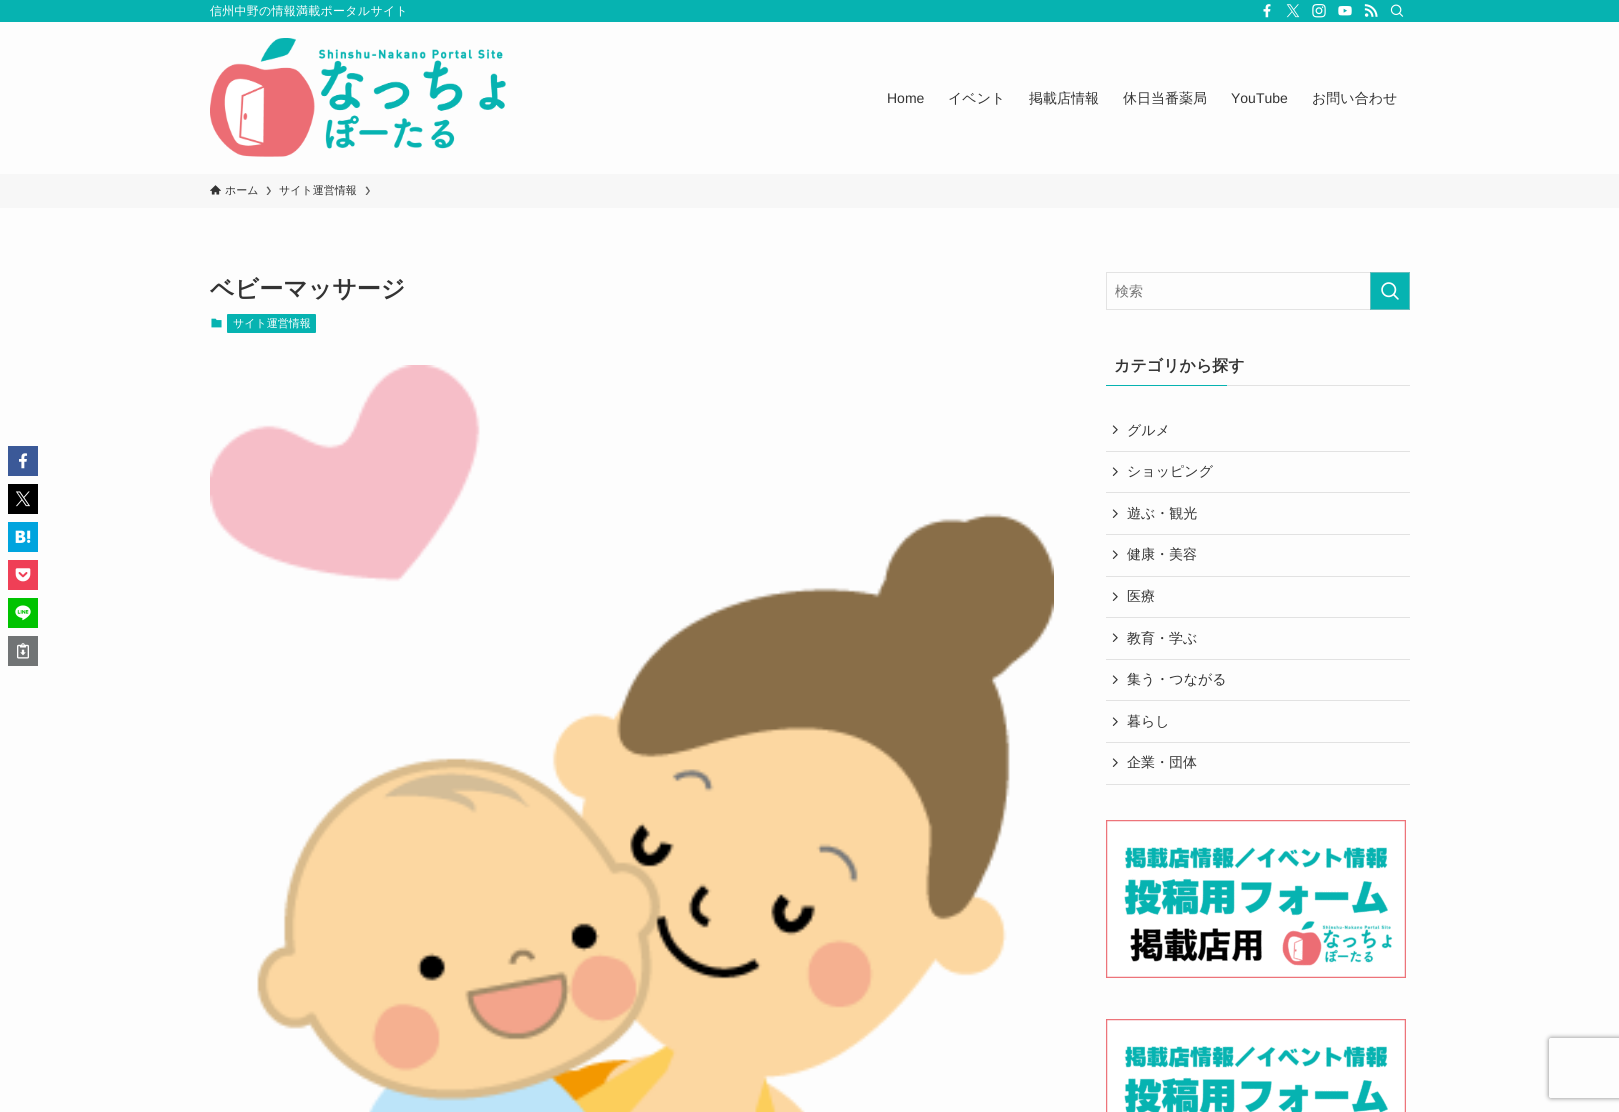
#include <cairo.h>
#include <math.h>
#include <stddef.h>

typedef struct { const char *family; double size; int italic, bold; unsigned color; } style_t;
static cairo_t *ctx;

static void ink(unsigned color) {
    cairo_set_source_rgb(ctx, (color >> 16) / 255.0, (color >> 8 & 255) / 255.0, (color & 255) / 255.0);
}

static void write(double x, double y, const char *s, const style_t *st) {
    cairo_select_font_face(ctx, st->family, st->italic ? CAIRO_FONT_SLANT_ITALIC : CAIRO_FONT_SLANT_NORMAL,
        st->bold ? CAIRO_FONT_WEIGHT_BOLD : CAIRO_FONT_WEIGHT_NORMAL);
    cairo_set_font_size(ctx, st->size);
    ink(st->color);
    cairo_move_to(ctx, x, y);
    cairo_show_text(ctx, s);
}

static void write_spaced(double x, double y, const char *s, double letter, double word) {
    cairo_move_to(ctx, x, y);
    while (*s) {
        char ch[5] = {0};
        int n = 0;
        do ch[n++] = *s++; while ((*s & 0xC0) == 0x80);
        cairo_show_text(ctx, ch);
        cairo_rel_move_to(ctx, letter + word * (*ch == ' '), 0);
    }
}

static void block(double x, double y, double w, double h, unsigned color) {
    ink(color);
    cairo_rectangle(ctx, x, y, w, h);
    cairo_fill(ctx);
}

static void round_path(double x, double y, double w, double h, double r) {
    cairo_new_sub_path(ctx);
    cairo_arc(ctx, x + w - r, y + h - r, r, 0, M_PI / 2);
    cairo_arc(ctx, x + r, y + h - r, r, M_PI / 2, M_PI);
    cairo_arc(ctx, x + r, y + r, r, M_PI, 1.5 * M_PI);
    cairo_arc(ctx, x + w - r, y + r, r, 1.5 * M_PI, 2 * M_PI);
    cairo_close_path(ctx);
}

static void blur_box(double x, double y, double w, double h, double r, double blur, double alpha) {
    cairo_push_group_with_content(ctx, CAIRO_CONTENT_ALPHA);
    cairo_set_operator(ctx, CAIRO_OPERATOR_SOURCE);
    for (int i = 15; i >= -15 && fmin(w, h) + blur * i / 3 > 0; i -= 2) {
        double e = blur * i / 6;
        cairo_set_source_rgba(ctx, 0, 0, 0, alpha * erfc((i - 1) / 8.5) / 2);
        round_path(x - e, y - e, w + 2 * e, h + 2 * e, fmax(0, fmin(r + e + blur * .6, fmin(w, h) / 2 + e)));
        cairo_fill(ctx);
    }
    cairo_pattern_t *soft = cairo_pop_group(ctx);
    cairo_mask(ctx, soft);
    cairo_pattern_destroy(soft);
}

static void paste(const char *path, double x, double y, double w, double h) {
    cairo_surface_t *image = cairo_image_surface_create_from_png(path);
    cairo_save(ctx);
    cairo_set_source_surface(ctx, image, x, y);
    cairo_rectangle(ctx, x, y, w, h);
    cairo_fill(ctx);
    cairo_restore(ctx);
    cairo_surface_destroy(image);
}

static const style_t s1 = {"Liberation Sans", 14, 0, 0, 0x333333};
static const style_t s2 = {"WenQuanYi Zen Hei Medium", 14, 0, 0, 0x333333};
static const style_t s3 = {"WenQuanYi Zen Hei Medium", 11, 0, 0, 0x333333};
static const style_t s4 = {"WenQuanYi Zen Hei", 24, 0, 1, 0x333333};
static const style_t s5 = {"WenQuanYi Zen Hei Medium", 11, 0, 0, 0xffffff};
static const style_t s6 = {"WenQuanYi Zen Hei Medium", 14, 0, 0, 0x757575};
static const style_t s7 = {"WenQuanYi Zen Hei", 16, 0, 1, 0x333333};

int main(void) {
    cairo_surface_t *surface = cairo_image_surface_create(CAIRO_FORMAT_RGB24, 1619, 1112);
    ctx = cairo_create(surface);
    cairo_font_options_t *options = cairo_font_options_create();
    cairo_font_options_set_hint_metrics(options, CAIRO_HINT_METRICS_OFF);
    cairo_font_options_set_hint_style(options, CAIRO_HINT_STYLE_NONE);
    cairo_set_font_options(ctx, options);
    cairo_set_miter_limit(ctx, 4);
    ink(0xfdfdfd);
    cairo_paint(ctx);
    block(0, 0, 1619, 22, 0x06b3b1);
    cairo_select_font_face(ctx, "WenQuanYi Zen Hei Medium", CAIRO_FONT_SLANT_NORMAL, CAIRO_FONT_WEIGHT_NORMAL);
    cairo_set_font_size(ctx, 12);
    ink(0xffffff);
    write_spaced(210, 15, "信州中野の情報満載ポータルサイト", 0.25, 0);
    paste("pic1.png", 1263, 4, 8, 14);
    paste("pic2.png", 1286, 4, 14, 14);
    paste("pic3.png", 1312, 4, 14, 14);
    paste("pic4.png", 1338, 6, 14, 10);
    paste("pic5.png", 1364, 4, 14, 13);
    paste("pic6.png", 1390, 4, 14, 13);
    paste("pic7.png", 210, 38, 296, 119);
    write(887, 103, "Home", &s1);
    write(948, 103, "イベント", &s2);
    write(1029, 103, "掲載店情報", &s2);
    write(1123, 103, "休日当番薬局", &s2);
    write(1231, 103, "YouTube", &s1);
    write(1312, 103, "お問い合わせ", &s2);
    block(0, 174, 1619, 34, 0xf7f7f7);
    paste("pic8.png", 210, 185, 11, 10);
    write(225, 194, "ホーム", &s3);
    ink(0x5a5a5a);
    cairo_new_path(ctx);
    cairo_move_to(ctx, 268, 186.5);
    cairo_line_to(ctx, 266.5, 187);
    cairo_line_to(ctx, 269.5, 191);
    cairo_line_to(ctx, 266.5, 195);
    cairo_line_to(ctx, 268, 195);
    cairo_line_to(ctx, 271, 191);
    cairo_close_path(ctx);
    cairo_fill(ctx);
    write(279, 194, "サイト運営情報", &s3);
    ink(0x5a5a5a);
    cairo_new_path(ctx);
    cairo_move_to(ctx, 367, 186.5);
    cairo_line_to(ctx, 365.5, 187);
    cairo_line_to(ctx, 368.5, 191);
    cairo_line_to(ctx, 365.5, 195);
    cairo_line_to(ctx, 367, 195);
    cairo_line_to(ctx, 370, 191);
    cairo_close_path(ctx);
    cairo_fill(ctx);
    write(210, 297, "ベビーマッサージ", &s4);
    paste("pic9.png", 211, 318, 11, 10);
    ink(0x06b3b1);
    round_path(227, 314, 89, 19, 1);
    cairo_fill(ctx);
    write(233, 327, "サイト運営情報", &s5);
    block(8, 446, 30, 30, 0x3b5998);
    paste("pic10.png", 19, 453, 9, 16);
    block(8, 484, 30, 30, 0x000000);
    paste("pic11.png", 15, 491, 15, 16);
    block(8, 522, 30, 30, 0x00a4de);
    paste("pic12.png", 15, 530, 16, 13);
    block(8, 560, 30, 30, 0xef3f56);
    paste("pic13.png", 15, 568, 16, 14);
    block(8, 598, 30, 30, 0x00c300);
    paste("pic14.png", 15, 605, 16, 16);
    block(8, 636, 30, 30, 0x717475);
    paste("pic15.png", 17, 643, 12, 16);
    paste("pic16.png", 210, 365, 844, 747);
    cairo_rectangle(ctx, 1106.5, 272.5, 303, 37);
    ink(0xe3e3e3);
    cairo_set_line_width(ctx, 1);
    cairo_stroke(ctx);
    write(1115, 296, "検索", &s6);
    ink(0x06b3b1);
    cairo_rectangle(ctx, 1370.5, 272.5, 39, 37);
    cairo_fill_preserve(ctx);
    ink(0x67bdbc);
    cairo_stroke(ctx);
    paste("pic17.png", 1381, 282, 18, 18);
    write(1114, 371, "カテゴリから探す", &s7);
    block(1106, 385, 121, 1, 0x06b3b1);
    block(1227, 385, 183, 1, 0xe2e2e2);
    block(1106, 451, 304, 1, 0xe2e2e2);
    paste("pic18.png", 1112, 425, 6, 9);
    write(1127, 435, "グルメ", &s2);
    block(1106, 492, 304, 1, 0xe2e2e2);
    paste("pic18.png", 1112, 467, 6, 9);
    write(1127, 476, "ショッピング", &s2);
    block(1106, 534, 304, 1, 0xe2e2e2);
    paste("pic18.png", 1112, 509, 6, 9);
    write(1127, 518, "遊ぶ・観光", &s2);
    block(1106, 576, 304, 1, 0xe2e2e2);
    paste("pic18.png", 1112, 550, 6, 9);
    write(1127, 559, "健康・美容", &s2);
    block(1106, 617, 304, 1, 0xe2e2e2);
    paste("pic18.png", 1112, 592, 6, 9);
    write(1127, 601, "医療", &s2);
    block(1106, 659, 304, 1, 0xe2e2e2);
    paste("pic18.png", 1112, 633, 6, 9);
    write(1127, 643, "教育・学ぶ", &s2);
    block(1106, 700, 304, 1, 0xe2e2e2);
    paste("pic18.png", 1112, 675, 6, 9);
    write(1127, 684, "集う・つながる", &s2);
    block(1106, 742, 304, 1, 0xe2e2e2);
    paste("pic18.png", 1112, 717, 6, 9);
    write(1127, 726, "暮らし", &s2);
    block(1106, 784, 304, 1, 0xe2e2e2);
    paste("pic18.png", 1112, 758, 6, 9);
    write(1127, 767, "企業・団体", &s2);
    paste("pic19.png", 1106, 820, 300, 158);
    paste("pic20.png", 1106, 1019, 300, 93);
    cairo_save(ctx);
    cairo_set_fill_rule(ctx, CAIRO_FILL_RULE_EVEN_ODD);
    cairo_new_path(ctx);
    cairo_move_to(ctx, 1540, 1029);
    cairo_line_to(ctx, 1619, 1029);
    cairo_line_to(ctx, 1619, 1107);
    cairo_line_to(ctx, 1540, 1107);
    cairo_close_path(ctx);
    cairo_move_to(ctx, 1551, 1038);
    cairo_line_to(ctx, 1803, 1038);
    cairo_curve_to(ctx, 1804, 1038, 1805, 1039, 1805, 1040);
    cairo_line_to(ctx, 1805, 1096);
    cairo_curve_to(ctx, 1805, 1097, 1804, 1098, 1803, 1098);
    cairo_line_to(ctx, 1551, 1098);
    cairo_curve_to(ctx, 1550, 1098, 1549, 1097, 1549, 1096);
    cairo_line_to(ctx, 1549, 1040);
    cairo_curve_to(ctx, 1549, 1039, 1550, 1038, 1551, 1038);
    cairo_close_path(ctx);
    cairo_clip(ctx);
    ink(0x808080);
    blur_box(1549, 1038, 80, 60, 2, 2.5, 1);
    cairo_restore(ctx);
    cairo_surface_write_to_png(surface, "screenshot.png");
    cairo_font_options_destroy(options);
    cairo_destroy(ctx);
    cairo_surface_destroy(surface);
    return 0;
}
